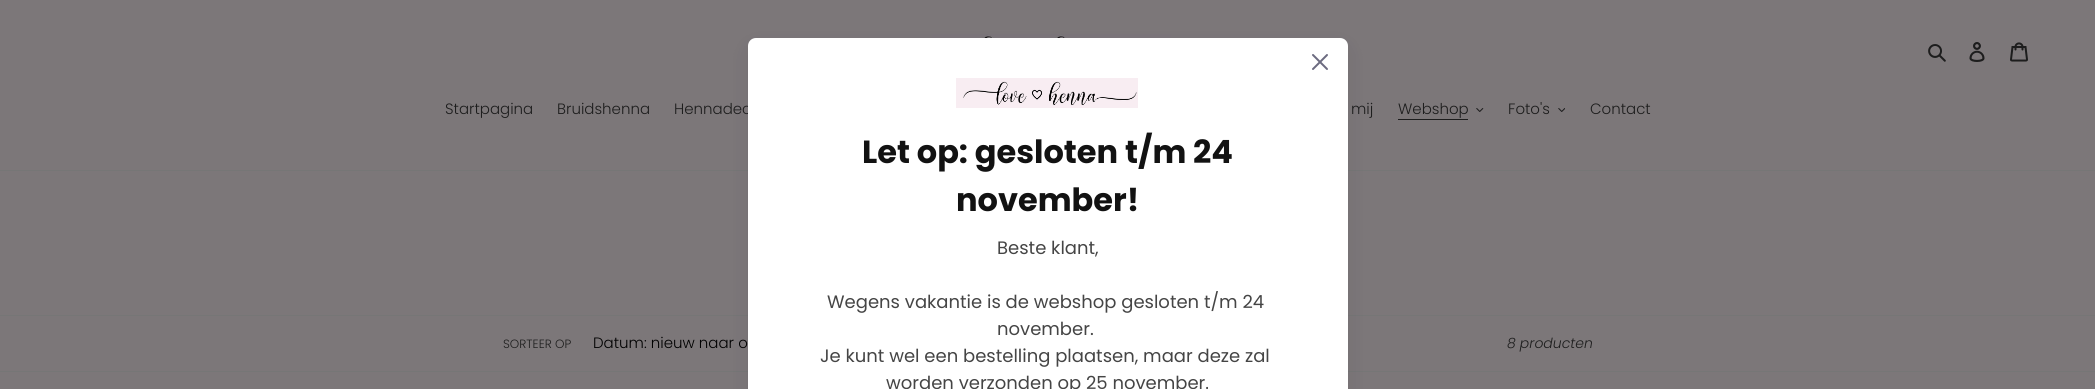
#include <cairo.h>
#include <math.h>
#include <stddef.h>

typedef struct { const char *family; double size; int italic, bold; unsigned color; } style_t;
static cairo_t *ctx;

static void ink(unsigned color) {
    cairo_set_source_rgb(ctx, (color >> 16) / 255.0, (color >> 8 & 255) / 255.0, (color & 255) / 255.0);
}

static void write(double x, double y, const char *s, const style_t *st) {
    cairo_select_font_face(ctx, st->family, st->italic ? CAIRO_FONT_SLANT_ITALIC : CAIRO_FONT_SLANT_NORMAL,
        st->bold ? CAIRO_FONT_WEIGHT_BOLD : CAIRO_FONT_WEIGHT_NORMAL);
    cairo_set_font_size(ctx, st->size);
    ink(st->color);
    cairo_move_to(ctx, x, y);
    cairo_show_text(ctx, s);
}

static void block(double x, double y, double w, double h, unsigned color) {
    ink(color);
    cairo_rectangle(ctx, x, y, w, h);
    cairo_fill(ctx);
}

static void round_path(double x, double y, double w, double h, double r) {
    cairo_new_sub_path(ctx);
    cairo_arc(ctx, x + w - r, y + h - r, r, 0, M_PI / 2);
    cairo_arc(ctx, x + r, y + h - r, r, M_PI / 2, M_PI);
    cairo_arc(ctx, x + r, y + r, r, M_PI, 1.5 * M_PI);
    cairo_arc(ctx, x + w - r, y + r, r, 1.5 * M_PI, 2 * M_PI);
    cairo_close_path(ctx);
}

static void blur_box(double x, double y, double w, double h, double r, double blur, double alpha) {
    cairo_push_group_with_content(ctx, CAIRO_CONTENT_ALPHA);
    cairo_set_operator(ctx, CAIRO_OPERATOR_SOURCE);
    for (int i = 15; i >= -15 && fmin(w, h) + blur * i / 3 > 0; i -= 2) {
        double e = blur * i / 6;
        cairo_set_source_rgba(ctx, 0, 0, 0, alpha * erfc((i - 1) / 8.5) / 2);
        round_path(x - e, y - e, w + 2 * e, h + 2 * e, fmax(0, fmin(r + e + blur * .6, fmin(w, h) / 2 + e)));
        cairo_fill(ctx);
    }
    cairo_pattern_t *soft = cairo_pop_group(ctx);
    cairo_mask(ctx, soft);
    cairo_pattern_destroy(soft);
}

static void paste(const char *path, double x, double y, double w, double h) {
    cairo_surface_t *image = cairo_image_surface_create_from_png(path);
    cairo_save(ctx);
    cairo_set_source_surface(ctx, image, x, y);
    cairo_rectangle(ctx, x, y, w, h);
    cairo_fill(ctx);
    cairo_restore(ctx);
    cairo_surface_destroy(image);
}

static const style_t s1 = {"Poppins Light", 15, 0, 0, 0x1d1d1d};
static const style_t s2 = {"Poppins", 32, 0, 1, 0x121212};
static const style_t s3 = {"Poppins", 18, 0, 0, 0x454545};
static const style_t s4 = {"Poppins Light", 12, 0, 0, 0x1d1d1d};
static const style_t s5 = {"Poppins Light", 15, 0, 0, 0x000000};
static const style_t s6 = {"Poppins Light", 14, 1, 0, 0x1d1d1d};

int main(void) {
    cairo_surface_t *surface = cairo_image_surface_create(CAIRO_FORMAT_RGB24, 2095, 389);
    ctx = cairo_create(surface);
    cairo_font_options_t *options = cairo_font_options_create();
    cairo_font_options_set_hint_metrics(options, CAIRO_HINT_METRICS_OFF);
    cairo_font_options_set_hint_style(options, CAIRO_HINT_STYLE_NONE);
    cairo_set_font_options(ctx, options);
    cairo_set_miter_limit(ctx, 4);
    ink(0x7c7779);
    cairo_paint(ctx);
    paste("pic1.png", 932, 34, 239, 4);
    paste("pic2.png", 1928, 44, 18, 18);
    paste("pic3.png", 1969, 42, 16, 20);
    paste("pic4.png", 2010, 42, 18, 20);
    block(0, 170, 2095, 1, 0x767676);
    write(445, 114, "Startpagina", &s1);
    write(557, 114, "Bruidshenna", &s1);
    write(674, 114, "Hennadec", &s1);
    write(1351, 114, "mij", &s1);
    write(1398, 114, "Webshop", &s1);
    block(1398, 119, 70, 1, 0x1d1d1d);
    paste("pic5.png", 1476, 108, 8, 4);
    write(1508, 114, "Foto's", &s1);
    paste("pic6.png", 1558, 108, 7, 4);
    write(1590, 114, "Contact", &s1);
    block(0, 315, 2095, 1, 0x767676);
    block(0, 371, 2095, 1, 0x767676);
    ink(0x121127);
    blur_box(748, 46, 600, 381, 8, 10, 0.1);
    ink(0xffffff);
    cairo_new_path(ctx);
    cairo_move_to(ctx, 756, 38);
    cairo_line_to(ctx, 1340, 38);
    cairo_curve_to(ctx, 1344.5, 38, 1348, 41.5, 1348, 46);
    cairo_line_to(ctx, 1348, 389);
    cairo_line_to(ctx, 748, 389);
    cairo_line_to(ctx, 748, 46);
    cairo_curve_to(ctx, 748, 41.5, 751.5, 38, 756, 38);
    cairo_close_path(ctx);
    cairo_fill(ctx);
    paste("pic7.png", 1312, 54, 16, 16);
    paste("pic8.png", 956, 78, 182, 30);
    write(862, 163, "Let op: gesloten t/m 24", &s2);
    write(956, 211, "november!", &s2);
    write(997, 254, "Beste klant,", &s3);
    write(827, 308, "Wegens vakantie is de webshop gesloten t/m 24", &s3);
    write(997, 335, "november.", &s3);
    write(820, 362, "Je kunt wel een bestelling plaatsen, maar deze zal", &s3);
    write(886, 389, "worden verzonden op 25 november.", &s3);
    write(503, 348, "SORTEER OP", &s4);
    write(593, 348, "Datum: nieuw naar o", &s5);
    write(1507, 348, "8 producten", &s6);
    cairo_surface_write_to_png(surface, "screenshot.png");
    cairo_font_options_destroy(options);
    cairo_destroy(ctx);
    cairo_surface_destroy(surface);
    return 0;
}
